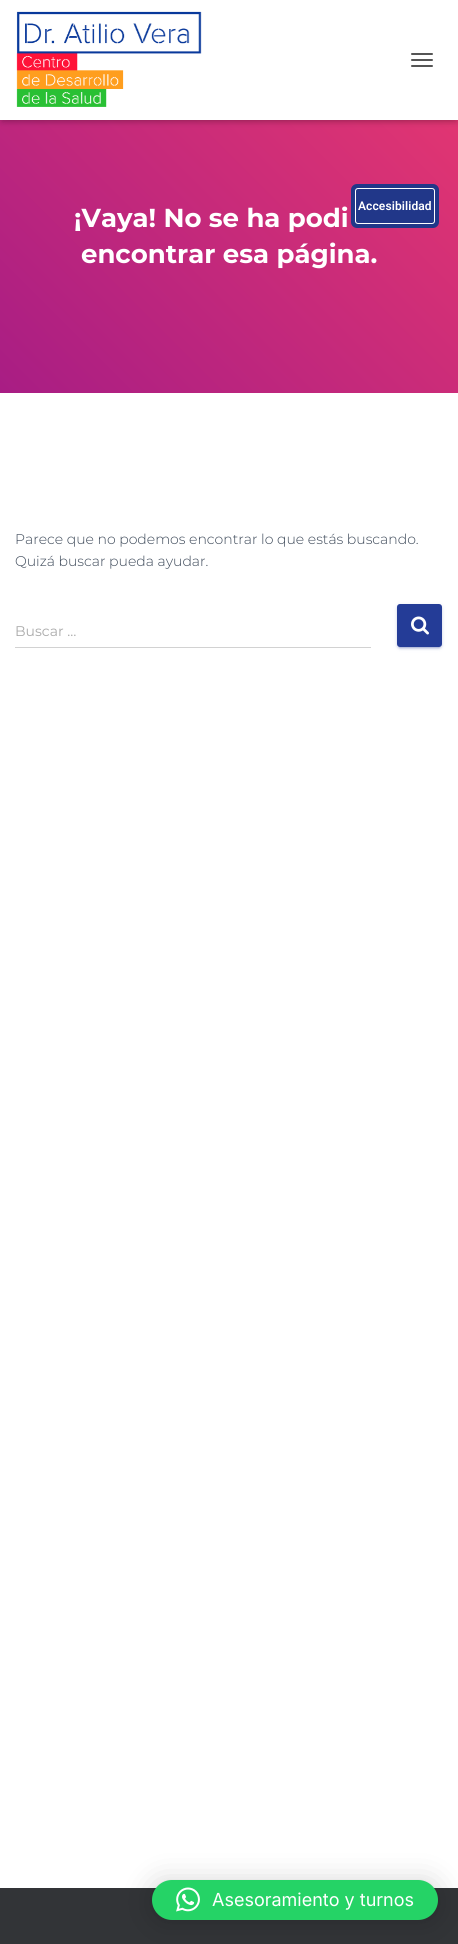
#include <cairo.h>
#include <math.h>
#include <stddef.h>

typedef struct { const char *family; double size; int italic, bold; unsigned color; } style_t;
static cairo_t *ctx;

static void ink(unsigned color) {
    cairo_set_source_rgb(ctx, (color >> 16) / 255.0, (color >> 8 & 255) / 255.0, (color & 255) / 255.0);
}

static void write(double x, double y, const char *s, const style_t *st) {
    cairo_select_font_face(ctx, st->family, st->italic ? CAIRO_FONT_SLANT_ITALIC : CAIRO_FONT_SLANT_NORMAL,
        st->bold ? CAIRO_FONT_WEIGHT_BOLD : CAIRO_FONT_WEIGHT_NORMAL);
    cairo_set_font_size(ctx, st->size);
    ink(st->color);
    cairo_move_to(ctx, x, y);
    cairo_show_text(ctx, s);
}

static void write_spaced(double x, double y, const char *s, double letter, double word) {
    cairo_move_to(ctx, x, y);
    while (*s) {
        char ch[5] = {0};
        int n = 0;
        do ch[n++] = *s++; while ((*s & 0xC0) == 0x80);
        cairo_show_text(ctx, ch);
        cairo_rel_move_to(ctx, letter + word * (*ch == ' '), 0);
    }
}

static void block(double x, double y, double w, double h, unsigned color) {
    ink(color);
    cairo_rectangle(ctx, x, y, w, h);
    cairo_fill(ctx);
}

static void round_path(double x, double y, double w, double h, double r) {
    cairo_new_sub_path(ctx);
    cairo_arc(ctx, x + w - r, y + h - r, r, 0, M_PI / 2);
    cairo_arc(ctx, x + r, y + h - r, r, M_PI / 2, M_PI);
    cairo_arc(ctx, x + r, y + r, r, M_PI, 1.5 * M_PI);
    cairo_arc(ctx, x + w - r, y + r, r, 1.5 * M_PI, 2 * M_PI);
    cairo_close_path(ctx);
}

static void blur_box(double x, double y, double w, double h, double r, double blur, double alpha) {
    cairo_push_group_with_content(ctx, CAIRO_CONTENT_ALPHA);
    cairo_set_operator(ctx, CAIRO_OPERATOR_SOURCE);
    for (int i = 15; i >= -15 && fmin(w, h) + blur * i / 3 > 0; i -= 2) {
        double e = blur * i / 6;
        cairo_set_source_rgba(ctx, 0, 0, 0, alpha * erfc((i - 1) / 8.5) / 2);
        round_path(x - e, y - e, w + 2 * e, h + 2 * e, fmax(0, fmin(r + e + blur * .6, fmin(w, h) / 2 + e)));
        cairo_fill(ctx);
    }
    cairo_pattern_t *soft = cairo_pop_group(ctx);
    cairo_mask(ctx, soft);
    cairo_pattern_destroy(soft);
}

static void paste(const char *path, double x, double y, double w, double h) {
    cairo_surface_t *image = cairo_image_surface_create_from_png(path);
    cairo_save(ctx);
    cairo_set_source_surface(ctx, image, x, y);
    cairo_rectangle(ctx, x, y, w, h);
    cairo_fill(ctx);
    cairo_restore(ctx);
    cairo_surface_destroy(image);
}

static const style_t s1 = {"Montserrat", 26, 0, 1, 0xffffff};
static const style_t s2 = {"Montserrat Light", 14, 0, 0, 0x3c4858};
static const style_t s3 = {"Montserrat", 14, 0, 0, 0xaaaaaa};
static const style_t s4 = {"Inter", 18, 0, 0, 0xffffff};

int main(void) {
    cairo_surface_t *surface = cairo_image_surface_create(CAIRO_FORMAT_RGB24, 458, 1944);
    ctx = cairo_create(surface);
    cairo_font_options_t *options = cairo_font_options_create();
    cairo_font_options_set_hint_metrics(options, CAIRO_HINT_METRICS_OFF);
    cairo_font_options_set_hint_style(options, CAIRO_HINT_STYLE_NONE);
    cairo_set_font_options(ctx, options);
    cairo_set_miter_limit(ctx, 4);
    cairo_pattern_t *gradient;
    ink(0xffffff);
    cairo_paint(ctx);
    gradient = cairo_pattern_create_linear(16, 409, 442, -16);
    cairo_pattern_add_color_stop_rgba(gradient, 0, 0.659, 0.114, 0.518, 1);
    cairo_pattern_add_color_stop_rgba(gradient, 1, 0.918, 0.224, 0.435, 1);
    cairo_set_source(ctx, gradient);
    cairo_pattern_destroy(gradient);
    cairo_rectangle(ctx, 0, 120, 458, 273);
    cairo_fill(ctx);
    ink(0x213789);
    round_path(351, 184, 88, 44, 6);
    cairo_fill(ctx);
    round_path(355.5, 188.5, 79, 35, 2.5);
    ink(0xffffff);
    cairo_set_line_width(ctx, 1);
    cairo_stroke(ctx);
    cairo_select_font_face(ctx, "Roboto SemiBold", CAIRO_FONT_SLANT_NORMAL, CAIRO_FONT_WEIGHT_NORMAL);
    cairo_set_font_size(ctx, 12);
    write_spaced(358, 210, "Accesibilidad", 0.1, 0);
    ink(0x000000);
    blur_box(2, 6, 454, 116, 0, 2.5, 0.1);
    blur_box(0, 1, 458, 120, 0, 5, 0.12);
    blur_box(6, 7, 446, 108, 0, 5, 0.42);
    block(0, 0, 458, 120, 0xffffff);
    paste("pic1.png", 16, 11, 186, 96);
    ink(0x555555);
    round_path(411, 53, 22, 2, 1);
    cairo_fill(ctx);
    round_path(411, 59, 22, 2, 1);
    cairo_fill(ctx);
    round_path(411, 65, 22, 2, 1);
    cairo_fill(ctx);
    write(74, 227, "¡Vaya! No se ha podi", &s1);
    write(81, 263, "encontrar esa página.", &s1);
    write(15, 544, "Parece que no podemos encontrar lo que estás buscando.", &s2);
    write(15, 566, "Quizá buscar pueda ayudar.", &s2);
    write(15, 636, "Buscar …", &s3);
    block(15, 647, 356, 1, 0xd2d2d2);
    ink(0x243c97);
    blur_box(397, 605, 45, 43, 3, 2.5, 0.12);
    blur_box(399, 609, 41, 39, 1, 0.5, 0.2);
    blur_box(397, 606, 45, 43, 3, 1, 0.14);
    ink(0x243c97);
    round_path(397, 604, 45, 43, 3);
    cairo_fill(ctx);
    paste("pic2.png", 411, 616, 18, 19);
    block(0, 1888, 458, 56, 0x323437);
    ink(0x000000);
    blur_box(152, 1882, 286, 40, 20, 16, 0.16);
    blur_box(152, 1881, 286, 40, 20, 3, 0.06);
    ink(0x25d366);
    round_path(152, 1880, 286, 40, 20);
    cairo_fill(ctx);
    paste("pic3.png", 176, 1887, 24, 25);
    write(212, 1906, "Asesoramiento y turnos", &s4);
    cairo_surface_write_to_png(surface, "screenshot.png");
    cairo_font_options_destroy(options);
    cairo_destroy(ctx);
    cairo_surface_destroy(surface);
    return 0;
}
